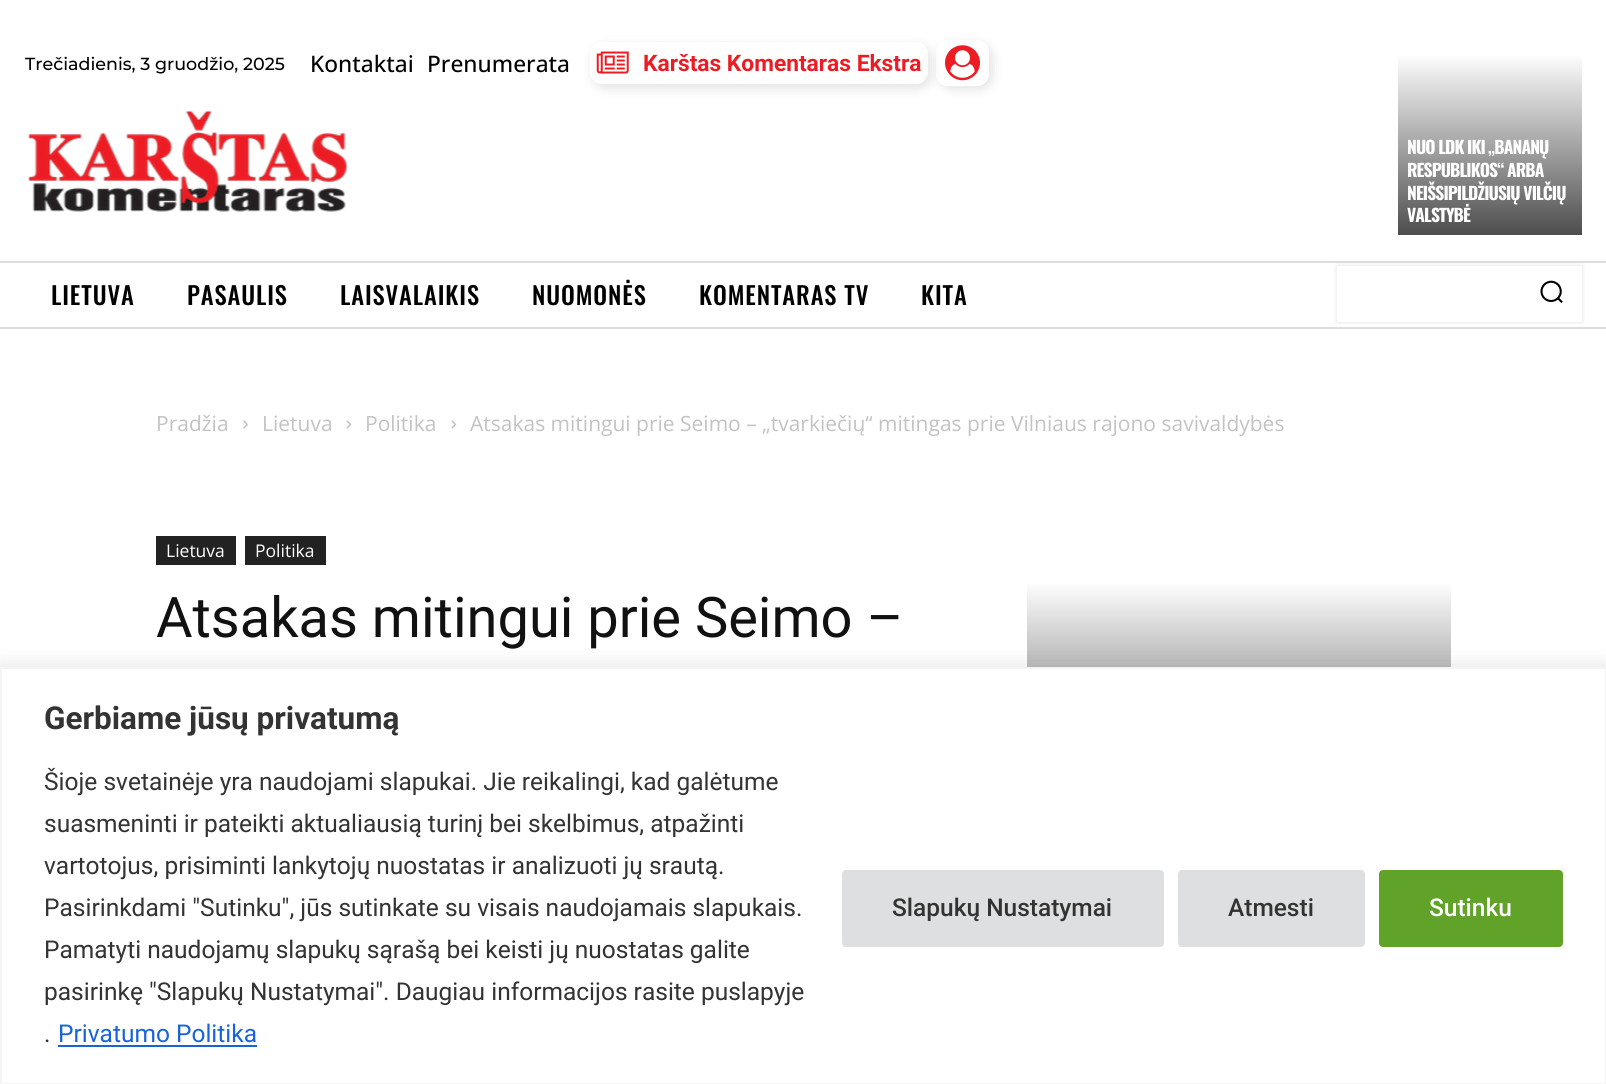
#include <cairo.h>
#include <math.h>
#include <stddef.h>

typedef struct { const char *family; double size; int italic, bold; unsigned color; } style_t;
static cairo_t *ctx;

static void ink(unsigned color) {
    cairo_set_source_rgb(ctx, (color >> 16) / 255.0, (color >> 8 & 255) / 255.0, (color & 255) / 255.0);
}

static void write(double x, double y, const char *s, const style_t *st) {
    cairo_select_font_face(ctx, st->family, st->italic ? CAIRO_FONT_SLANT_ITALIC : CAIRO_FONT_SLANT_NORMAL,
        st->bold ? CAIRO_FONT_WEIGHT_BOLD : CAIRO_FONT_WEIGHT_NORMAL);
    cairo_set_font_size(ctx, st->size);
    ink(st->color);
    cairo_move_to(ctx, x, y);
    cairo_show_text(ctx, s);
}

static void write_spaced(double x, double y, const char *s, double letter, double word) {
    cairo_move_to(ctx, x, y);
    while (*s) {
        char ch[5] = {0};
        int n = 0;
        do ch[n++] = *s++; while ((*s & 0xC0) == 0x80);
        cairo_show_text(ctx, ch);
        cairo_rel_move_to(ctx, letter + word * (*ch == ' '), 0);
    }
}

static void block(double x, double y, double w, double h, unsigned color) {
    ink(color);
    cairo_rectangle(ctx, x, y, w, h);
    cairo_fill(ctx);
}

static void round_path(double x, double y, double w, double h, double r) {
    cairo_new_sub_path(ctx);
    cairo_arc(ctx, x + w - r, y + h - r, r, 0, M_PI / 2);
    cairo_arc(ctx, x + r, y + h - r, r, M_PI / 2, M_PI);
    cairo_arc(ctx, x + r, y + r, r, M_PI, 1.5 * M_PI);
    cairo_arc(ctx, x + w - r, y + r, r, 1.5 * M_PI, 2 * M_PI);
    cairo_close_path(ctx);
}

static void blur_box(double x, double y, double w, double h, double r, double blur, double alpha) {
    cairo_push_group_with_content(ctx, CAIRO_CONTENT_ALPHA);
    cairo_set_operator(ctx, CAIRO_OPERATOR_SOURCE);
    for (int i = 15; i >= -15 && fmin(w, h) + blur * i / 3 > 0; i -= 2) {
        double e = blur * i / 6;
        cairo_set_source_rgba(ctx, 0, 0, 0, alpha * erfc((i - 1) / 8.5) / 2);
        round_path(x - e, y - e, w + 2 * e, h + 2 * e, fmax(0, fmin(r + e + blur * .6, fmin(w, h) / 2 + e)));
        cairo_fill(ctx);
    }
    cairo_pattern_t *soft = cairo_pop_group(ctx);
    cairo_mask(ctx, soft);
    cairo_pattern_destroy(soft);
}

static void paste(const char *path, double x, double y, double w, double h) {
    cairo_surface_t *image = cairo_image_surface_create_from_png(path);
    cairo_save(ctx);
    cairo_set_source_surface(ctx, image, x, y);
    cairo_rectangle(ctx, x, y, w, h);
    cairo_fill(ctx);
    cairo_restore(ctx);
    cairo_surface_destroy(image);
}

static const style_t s1 = {"Montserrat Medium", 17.5, 0, 0, 0x000000};
static const style_t s2 = {"Open Sans Medium", 22.75, 0, 0, 0x000000};
static const style_t s3 = {"Roboto", 22.75, 0, 1, 0xed1c24};
static const style_t s4 = {"Open Sans", 21, 0, 0, 0xc3c3c3};
static const style_t s5 = {"Open Sans", 17.5, 0, 0, 0xffffff};
static const style_t s6 = {"Roboto", 56, 0, 0, 0x111111};
static const style_t s7 = {"Roboto", 31.5, 0, 1, 0x333333};
static const style_t s8 = {"Roboto", 24.5, 0, 0, 0x333333};
static const style_t s9 = {"Roboto", 24.5, 0, 0, 0x1863dc};
static const style_t s10 = {"Roboto Medium", 24.5, 0, 0, 0x333333};
static const style_t s11 = {"Roboto Medium", 24.5, 0, 0, 0xffffff};

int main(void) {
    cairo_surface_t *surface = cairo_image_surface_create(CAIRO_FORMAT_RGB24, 1606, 1084);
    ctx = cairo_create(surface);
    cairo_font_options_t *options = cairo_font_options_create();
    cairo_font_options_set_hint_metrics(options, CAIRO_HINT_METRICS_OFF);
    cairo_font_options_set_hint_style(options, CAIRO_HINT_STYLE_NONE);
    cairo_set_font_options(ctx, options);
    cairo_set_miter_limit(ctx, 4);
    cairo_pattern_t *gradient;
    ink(0xffffff);
    cairo_paint(ctx);
    write(25, 70, "Trečiadienis, 3 gruodžio, 2025", &s1);
    write(310, 72, "Kontaktai", &s2);
    write(427, 72, "Prenumerata", &s2);
    cairo_save(ctx);
    cairo_set_fill_rule(ctx, CAIRO_FILL_RULE_EVEN_ODD);
    cairo_new_path(ctx);
    cairo_move_to(ctx, 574, 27);
    cairo_line_to(ctx, 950, 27);
    cairo_line_to(ctx, 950, 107);
    cairo_line_to(ctx, 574, 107);
    cairo_close_path(ctx);
    cairo_move_to(ctx, 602, 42);
    cairo_line_to(ctx, 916, 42);
    cairo_curve_to(ctx, 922.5, 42, 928, 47.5, 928, 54);
    cairo_line_to(ctx, 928, 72);
    cairo_curve_to(ctx, 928, 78.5, 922.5, 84, 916, 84);
    cairo_line_to(ctx, 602, 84);
    cairo_curve_to(ctx, 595.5, 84, 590, 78.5, 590, 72);
    cairo_line_to(ctx, 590, 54);
    cairo_curve_to(ctx, 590, 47.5, 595.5, 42, 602, 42);
    cairo_close_path(ctx);
    cairo_clip(ctx);
    ink(0x000000);
    blur_box(593, 46, 338, 42, 12, 6, 0.12);
    cairo_restore(ctx);
    paste("pic1.png", 596, 51, 33, 23);
    write(643, 71, "Karštas Komentaras Ekstra", &s3);
    cairo_save(ctx);
    cairo_set_fill_rule(ctx, CAIRO_FILL_RULE_EVEN_ODD);
    cairo_new_path(ctx);
    cairo_move_to(ctx, 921, 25);
    cairo_line_to(ctx, 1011, 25);
    cairo_line_to(ctx, 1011, 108);
    cairo_line_to(ctx, 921, 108);
    cairo_close_path(ctx);
    cairo_move_to(ctx, 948, 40);
    cairo_line_to(ctx, 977, 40);
    cairo_curve_to(ctx, 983.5, 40, 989, 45.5, 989, 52);
    cairo_line_to(ctx, 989, 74);
    cairo_curve_to(ctx, 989, 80.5, 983.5, 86, 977, 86);
    cairo_line_to(ctx, 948, 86);
    cairo_curve_to(ctx, 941.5, 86, 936, 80.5, 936, 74);
    cairo_line_to(ctx, 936, 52);
    cairo_curve_to(ctx, 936, 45.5, 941.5, 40, 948, 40);
    cairo_close_path(ctx);
    cairo_clip(ctx);
    ink(0x000000);
    blur_box(940, 44, 52, 45, 12, 6, 0.12);
    cairo_restore(ctx);
    paste("pic2.png", 945, 45, 35, 36);
    paste("pic3.png", 28, 110, 320, 102);
    gradient = cairo_pattern_create_linear(1490, 235, 1490, 53);
    cairo_pattern_add_color_stop_rgba(gradient, 0, 0.302, 0.302, 0.302, 1);
    cairo_pattern_add_color_stop_rgba(gradient, 1, 1, 1, 1, 1);
    cairo_set_source(ctx, gradient);
    cairo_pattern_destroy(gradient);
    cairo_rectangle(ctx, 1398, 56, 184, 179);
    cairo_fill(ctx);
    cairo_select_font_face(ctx, "Oswald", CAIRO_FONT_SLANT_NORMAL, CAIRO_FONT_WEIGHT_BOLD);
    cairo_set_font_size(ctx, 17.5);
    ink(0xffffff);
    write_spaced(1407, 154, "NUO LDK IKI „BANANŲ", -0.9, 0);
    write_spaced(1407, 177, "RESPUBLIKOS“ ARBA", -0.9, 0);
    write_spaced(1407, 200, "NEIŠSIPILDŽIUSIŲ VILČIŲ", -0.9, 0);
    write_spaced(1407, 222, "VALSTYBĖ", -0.9, 0);
    block(0, 261, 1606, 2, 0xdddddd);
    block(0, 327, 1606, 2, 0xdddddd);
    cairo_select_font_face(ctx, "Oswald Medium", CAIRO_FONT_SLANT_NORMAL, CAIRO_FONT_WEIGHT_NORMAL);
    cairo_set_font_size(ctx, 24.5);
    ink(0x000000);
    write_spaced(51, 305, "LIETUVA", 0.9, 0);
    write_spaced(187, 305, "PASAULIS", 0.9, 0);
    write_spaced(340, 305, "LAISVALAIKIS", 0.9, 0);
    write_spaced(532, 305, "NUOMONĖS", 0.9, 0);
    write_spaced(699, 305, "KOMENTARAS TV", 0.9, 0);
    write_spaced(921, 305, "KITA", 0.9, 0);
    cairo_save(ctx);
    cairo_set_fill_rule(ctx, CAIRO_FILL_RULE_EVEN_ODD);
    cairo_new_path(ctx);
    cairo_move_to(ctx, 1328, 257);
    cairo_line_to(ctx, 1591, 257);
    cairo_line_to(ctx, 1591, 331);
    cairo_line_to(ctx, 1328, 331);
    cairo_close_path(ctx);
    cairo_move_to(ctx, 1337, 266);
    cairo_line_to(ctx, 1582, 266);
    cairo_line_to(ctx, 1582, 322);
    cairo_line_to(ctx, 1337, 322);
    cairo_close_path(ctx);
    cairo_clip(ctx);
    ink(0x000000);
    blur_box(1337, 266, 245, 56, 0, 2.5, 0.12);
    cairo_restore(ctx);
    paste("pic4.png", 1540, 280, 23, 23);
    write(156, 431, "Pradžia", &s4);
    paste("pic5.png", 243, 420, 5, 9);
    write(262, 431, "Lietuva", &s4);
    paste("pic6.png", 346, 420, 6, 9);
    write(365, 431, "Politika", &s4);
    paste("pic6.png", 451, 420, 6, 9);
    write(470, 431, "Atsakas mitingui prie Seimo – „tvarkiečių“ mitingas prie Vilniaus rajono savivaldybės", &s4);
    block(156, 536, 80, 29, 0x222222);
    write(166, 557, "Lietuva", &s5);
    block(245, 536, 81, 29, 0x222222);
    write(255, 557, "Politika", &s5);
    write(156, 637, "Atsakas mitingui prie Seimo –", &s6);
    gradient = cairo_pattern_create_linear(803, 581, 803, 821);
    cairo_pattern_add_color_stop_rgba(gradient, 0, 1, 1, 1, 1);
    cairo_pattern_add_color_stop_rgba(gradient, 1, 0.2, 0.2, 0.2, 1);
    cairo_set_source(ctx, gradient);
    cairo_pattern_destroy(gradient);
    cairo_rectangle(ctx, 1027, 584, 424, 83);
    cairo_fill(ctx);
    ink(0xacabab);
    blur_box(0, 665, 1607, 418, 0, 9, 0.3);
    ink(0xffffff);
    cairo_rectangle(ctx, 1, 668, 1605, 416);
    cairo_fill_preserve(ctx);
    ink(0xf4f4f4);
    cairo_stroke(ctx);
    write(44, 729, "Gerbiame jūsų privatumą", &s7);
    write(44, 790, "Šioje svetainėje yra naudojami slapukai. Jie reikalingi, kad galėtume", &s8);
    write(44, 832, "suasmeninti ir pateikti aktualiausią turinį bei skelbimus, atpažinti", &s8);
    write(44, 874, "vartotojus, prisiminti lankytojų nuostatas ir analizuoti jų srautą.", &s8);
    write(44, 916, "Pasirinkdami \"Sutinku\", jūs sutinkate su visais naudojamais slapukais.", &s8);
    write(44, 958, "Pamatyti naudojamų slapukų sąrašą bei keisti jų nuostatas galite", &s8);
    write(44, 1000, "pasirinkę \"Slapukų Nustatymai\". Daugiau informacijos rasite puslapyje", &s8);
    write(44, 1042, ".", &s8);
    write(58, 1042, "Privatumo Politika", &s9);
    block(58, 1045, 199, 2, 0x1863dc);
    ink(0xdedfe0);
    round_path(844, 872, 318, 73, 2);
    cairo_fill_preserve(ctx);
    cairo_set_line_width(ctx, 4);
    cairo_stroke(ctx);
    write(892, 916, "Slapukų Nustatymai", &s10);
    ink(0xdedfe0);
    round_path(1180, 872, 183, 73, 2);
    cairo_fill_preserve(ctx);
    cairo_stroke(ctx);
    write(1228, 916, "Atmesti", &s10);
    ink(0x61a229);
    round_path(1381, 872, 180, 73, 2);
    cairo_fill_preserve(ctx);
    cairo_stroke(ctx);
    write(1429, 916, "Sutinku", &s11);
    cairo_surface_write_to_png(surface, "screenshot.png");
    cairo_font_options_destroy(options);
    cairo_destroy(ctx);
    cairo_surface_destroy(surface);
    return 0;
}
